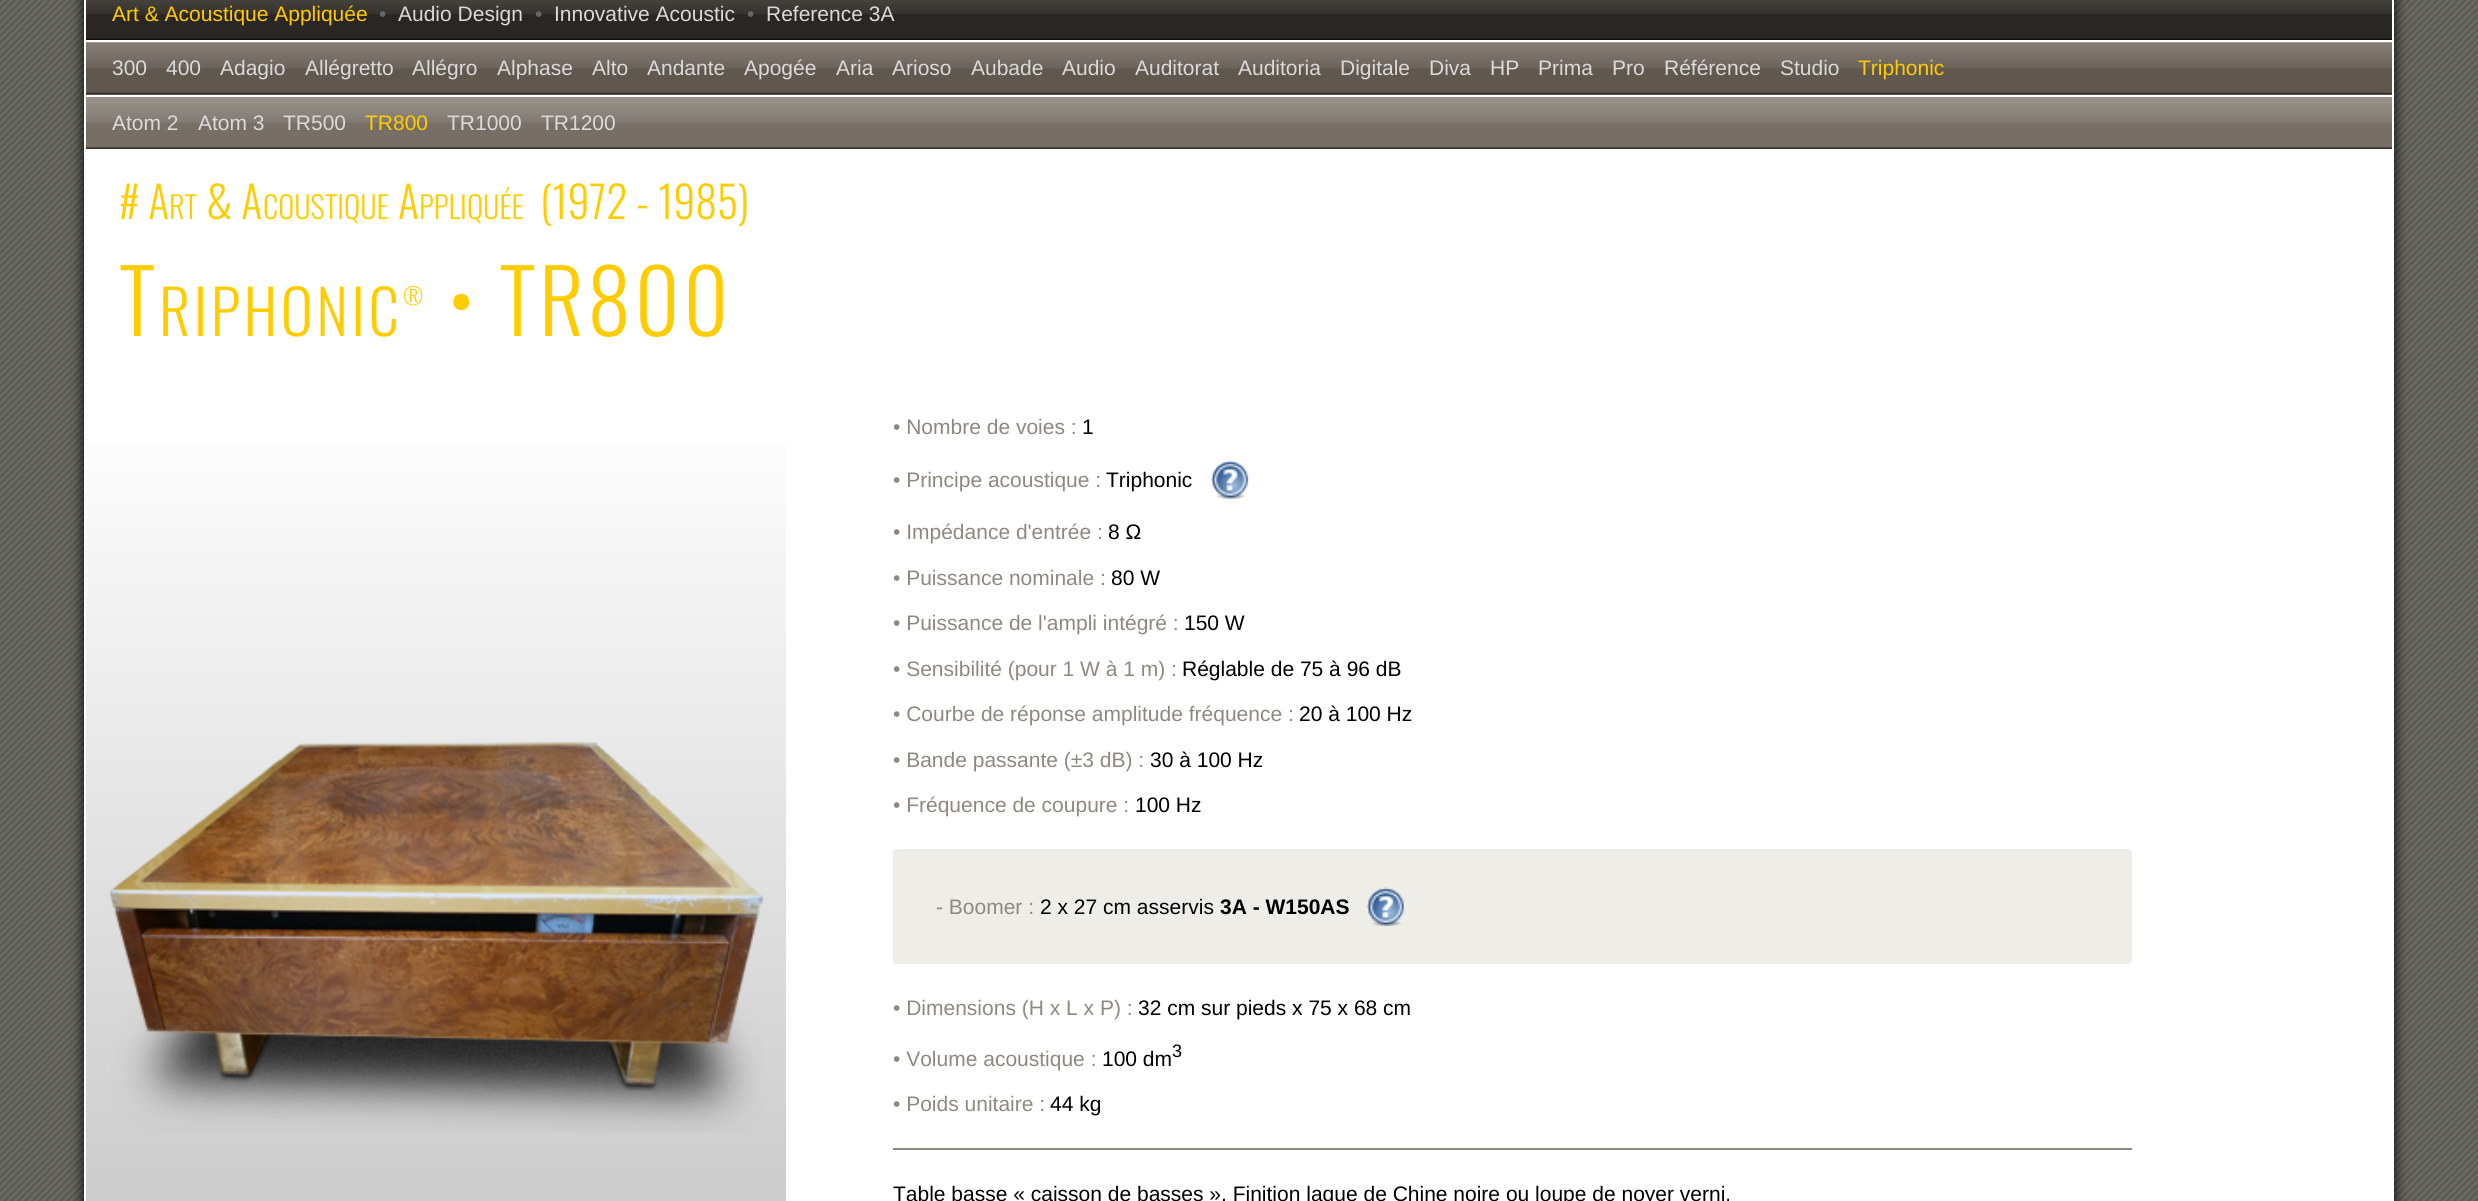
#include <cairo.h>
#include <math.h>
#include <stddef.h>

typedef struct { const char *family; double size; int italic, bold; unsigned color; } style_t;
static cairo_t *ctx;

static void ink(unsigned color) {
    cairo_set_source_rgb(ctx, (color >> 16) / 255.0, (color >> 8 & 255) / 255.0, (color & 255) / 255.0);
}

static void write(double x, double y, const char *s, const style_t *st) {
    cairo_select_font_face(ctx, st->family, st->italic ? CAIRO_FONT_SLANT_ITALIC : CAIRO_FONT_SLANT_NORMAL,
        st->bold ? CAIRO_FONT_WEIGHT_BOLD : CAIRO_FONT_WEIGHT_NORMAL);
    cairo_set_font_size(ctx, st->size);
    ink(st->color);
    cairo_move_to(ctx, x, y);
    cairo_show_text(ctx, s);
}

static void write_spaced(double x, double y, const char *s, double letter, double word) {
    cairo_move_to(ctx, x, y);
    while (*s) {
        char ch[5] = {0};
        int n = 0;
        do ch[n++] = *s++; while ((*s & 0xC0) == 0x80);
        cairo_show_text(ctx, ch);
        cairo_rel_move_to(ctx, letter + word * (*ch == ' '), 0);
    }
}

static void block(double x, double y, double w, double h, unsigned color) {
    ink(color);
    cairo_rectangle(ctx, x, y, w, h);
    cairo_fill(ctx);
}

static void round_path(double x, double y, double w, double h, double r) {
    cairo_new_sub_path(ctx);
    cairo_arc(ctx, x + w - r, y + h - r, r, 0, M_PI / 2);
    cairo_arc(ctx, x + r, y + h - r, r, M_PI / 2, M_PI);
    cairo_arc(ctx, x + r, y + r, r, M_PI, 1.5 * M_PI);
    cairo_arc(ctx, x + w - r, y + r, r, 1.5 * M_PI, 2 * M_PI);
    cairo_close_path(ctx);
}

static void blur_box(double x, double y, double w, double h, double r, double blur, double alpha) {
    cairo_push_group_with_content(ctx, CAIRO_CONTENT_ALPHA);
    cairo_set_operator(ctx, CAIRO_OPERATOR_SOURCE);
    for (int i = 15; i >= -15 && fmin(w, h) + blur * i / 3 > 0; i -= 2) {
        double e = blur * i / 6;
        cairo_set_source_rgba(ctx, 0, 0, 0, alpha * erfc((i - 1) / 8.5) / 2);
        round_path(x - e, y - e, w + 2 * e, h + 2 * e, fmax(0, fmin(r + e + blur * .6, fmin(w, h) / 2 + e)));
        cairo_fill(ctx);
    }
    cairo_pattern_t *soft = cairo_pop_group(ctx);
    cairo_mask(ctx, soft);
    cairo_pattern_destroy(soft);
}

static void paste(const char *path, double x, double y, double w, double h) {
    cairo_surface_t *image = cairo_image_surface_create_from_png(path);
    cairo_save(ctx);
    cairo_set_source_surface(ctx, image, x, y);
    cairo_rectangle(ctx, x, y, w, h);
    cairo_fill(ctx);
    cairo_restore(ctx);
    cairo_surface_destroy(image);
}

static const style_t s1 = {"Liberation Sans", 21, 0, 0, 0xffcc00};
static const style_t s2 = {"Liberation Sans", 21, 0, 0, 0x666666};
static const style_t s3 = {"Liberation Sans", 21, 0, 0, 0xdadada};
static const style_t s4 = {"Oswald Light", 43.75, 0, 0, 0xffcc00};
static const style_t s5 = {"Oswald Light", 30.5, 0, 0, 0xffcc00};
static const style_t s6 = {"Liberation Sans", 21, 0, 0, 0x8f887f};
static const style_t s7 = {"Liberation Sans", 21, 0, 0, 0x000000};
static const style_t s8 = {"Liberation Sans", 21, 0, 1, 0x000000};
static const style_t s9 = {"Liberation Sans", 18, 0, 0, 0x000000};

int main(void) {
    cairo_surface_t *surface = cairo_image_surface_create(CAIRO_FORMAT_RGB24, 2478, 1201);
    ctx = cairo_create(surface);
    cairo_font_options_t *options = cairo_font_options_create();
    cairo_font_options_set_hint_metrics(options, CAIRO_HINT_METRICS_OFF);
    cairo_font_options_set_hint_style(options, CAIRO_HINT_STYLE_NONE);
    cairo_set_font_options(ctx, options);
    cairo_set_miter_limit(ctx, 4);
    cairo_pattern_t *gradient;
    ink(0x57584f);
    cairo_paint(ctx);
    paste("pic1.png", 0, 0, 2478, 1201);
    ink(0x000000);
    blur_box(84, -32, 2310, 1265, 11, 7, 1);
    block(84, 40, 2310, 1161, 0xffffff);
    paste("pic2.png", 86, 0, 2306, 40);
    block(2392, 0, 2, 40, 0xffffff);
    block(84, 0, 2, 40, 0xffffff);
    write(112, 21, "Art & Acoustique Appliquée", &s1);
    write(379, 21, "•", &s2);
    write(398, 21, "Audio Design", &s3);
    write(535, 21, "•", &s2);
    write(554, 21, "Innovative Acoustic", &s3);
    write(747, 21, "•", &s2);
    write(766, 21, "Reference 3A", &s3);
    paste("pic3.png", 86, 42, 2306, 53);
    write(112, 75, "300", &s3);
    write(166, 75, "400", &s3);
    write(220, 75, "Adagio", &s3);
    write(305, 75, "Allégretto", &s3);
    write(412, 75, "Allégro", &s3);
    write(497, 75, "Alphase", &s3);
    write(592, 75, "Alto", &s3);
    write(647, 75, "Andante", &s3);
    write(744, 75, "Apogée", &s3);
    write(836, 75, "Aria", &s3);
    write(892, 75, "Arioso", &s3);
    write(971, 75, "Aubade", &s3);
    write(1062, 75, "Audio", &s3);
    write(1135, 75, "Auditorat", &s3);
    write(1238, 75, "Auditoria", &s3);
    write(1340, 75, "Digitale", &s3);
    write(1429, 75, "Diva", &s3);
    write(1490, 75, "HP", &s3);
    write(1538, 75, "Prima", &s3);
    write(1612, 75, "Pro", &s3);
    write(1664, 75, "Référence", &s3);
    write(1780, 75, "Studio", &s3);
    write(1858, 75, "Triphonic", &s1);
    paste("pic4.png", 86, 97, 2306, 52);
    write(112, 130, "Atom 2", &s3);
    write(198, 130, "Atom 3", &s3);
    write(283, 130, "TR500", &s3);
    write(365, 130, "TR800", &s1);
    write(447, 130, "TR1000", &s3);
    write(541, 130, "TR1200", &s3);
    write(119, 219, "# A", &s4);
    write(169, 219, "RT", &s5);
    write(206, 219, "& A", &s4);
    write(263, 219, "COUSTIQUE", &s5);
    write(398, 219, "A", &s4);
    write(419, 219, "PPLIQUÉE", &s5);
    write(540, 219, "(1972 - 1985)", &s4);
    cairo_set_font_size(ctx, 87.5);
    write_spaced(119, 336, "T", 3.5, 0);
    cairo_set_font_size(ctx, 61);
    write_spaced(159, 336, "RIPHONIC", 3.5, 0);
    cairo_set_font_size(ctx, 23);
    write_spaced(403, 305, "®", 3.5, 0);
    cairo_set_font_size(ctx, 87.5);
    write_spaced(448, 336, "• TR800", 3.5, 0);
    gradient = cairo_pattern_create_linear(436, 406, 436, 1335);
    cairo_pattern_add_color_stop_rgba(gradient, 0, 1, 1, 1, 1);
    cairo_pattern_add_color_stop_rgba(gradient, 1, 0.765, 0.765, 0.765, 1);
    cairo_set_source(ctx, gradient);
    cairo_pattern_destroy(gradient);
    cairo_rectangle(ctx, 86, 445, 700, 756);
    cairo_fill(ctx);
    paste("pic5.png", 110, 741, 654, 391);
    write(893, 434, "• Nombre de voies :", &s6);
    write(1082, 434, "1", &s7);
    write(893, 487, "• Principe acoustique :", &s6);
    write(1106, 487, "Triphonic", &s7);
    paste("pic6.png", 1211, 460, 38, 39);
    write(893, 539, "• Impédance d'entrée :", &s6);
    write(1108, 539, "8 Ω", &s7);
    write(893, 585, "• Puissance nominale :", &s6);
    write(1111, 585, "80 W", &s7);
    write(893, 630, "• Puissance de l'ampli intégré :", &s6);
    write(1184, 630, "150 W", &s7);
    write(893, 676, "• Sensibilité (pour 1 W à 1 m) :", &s6);
    write(1182, 676, "Réglable de 75 à 96 dB", &s7);
    write(893, 721, "• Courbe de réponse amplitude fréquence :", &s6);
    write(1299, 721, "20 à 100 Hz", &s7);
    write(893, 767, "• Bande passante (±3 dB) :", &s6);
    write(1150, 767, "30 à 100 Hz", &s7);
    write(893, 812, "• Fréquence de coupure :", &s6);
    write(1135, 812, "100 Hz", &s7);
    ink(0xeeede7);
    round_path(893, 849, 1239, 115, 4);
    cairo_fill(ctx);
    write(936, 914, "- Boomer :", &s6);
    write(1040, 914, "2 x 27 cm asservis", &s7);
    write(1220, 914, "3A - W150AS", &s8);
    paste("pic7.png", 1366, 887, 38, 39);
    write(893, 1015, "• Dimensions (H x L x P) :", &s6);
    write(1138, 1015, "32 cm sur pieds x 75 x 68 cm", &s7);
    write(893, 1066, "• Volume acoustique :", &s6);
    write(1102, 1066, "100 dm", &s7);
    write(1172, 1057, "3", &s9);
    write(893, 1111, "• Poids unitaire :", &s6);
    write(1050, 1111, "44 kg", &s7);
    block(893, 1148, 1239, 2, 0x8f887f);
    write(893, 1201, "Table basse « caisson de basses ». Finition laque de Chine noire ou loupe de noyer verni.", &s7);
    cairo_surface_write_to_png(surface, "screenshot.png");
    cairo_font_options_destroy(options);
    cairo_destroy(ctx);
    cairo_surface_destroy(surface);
    return 0;
}
